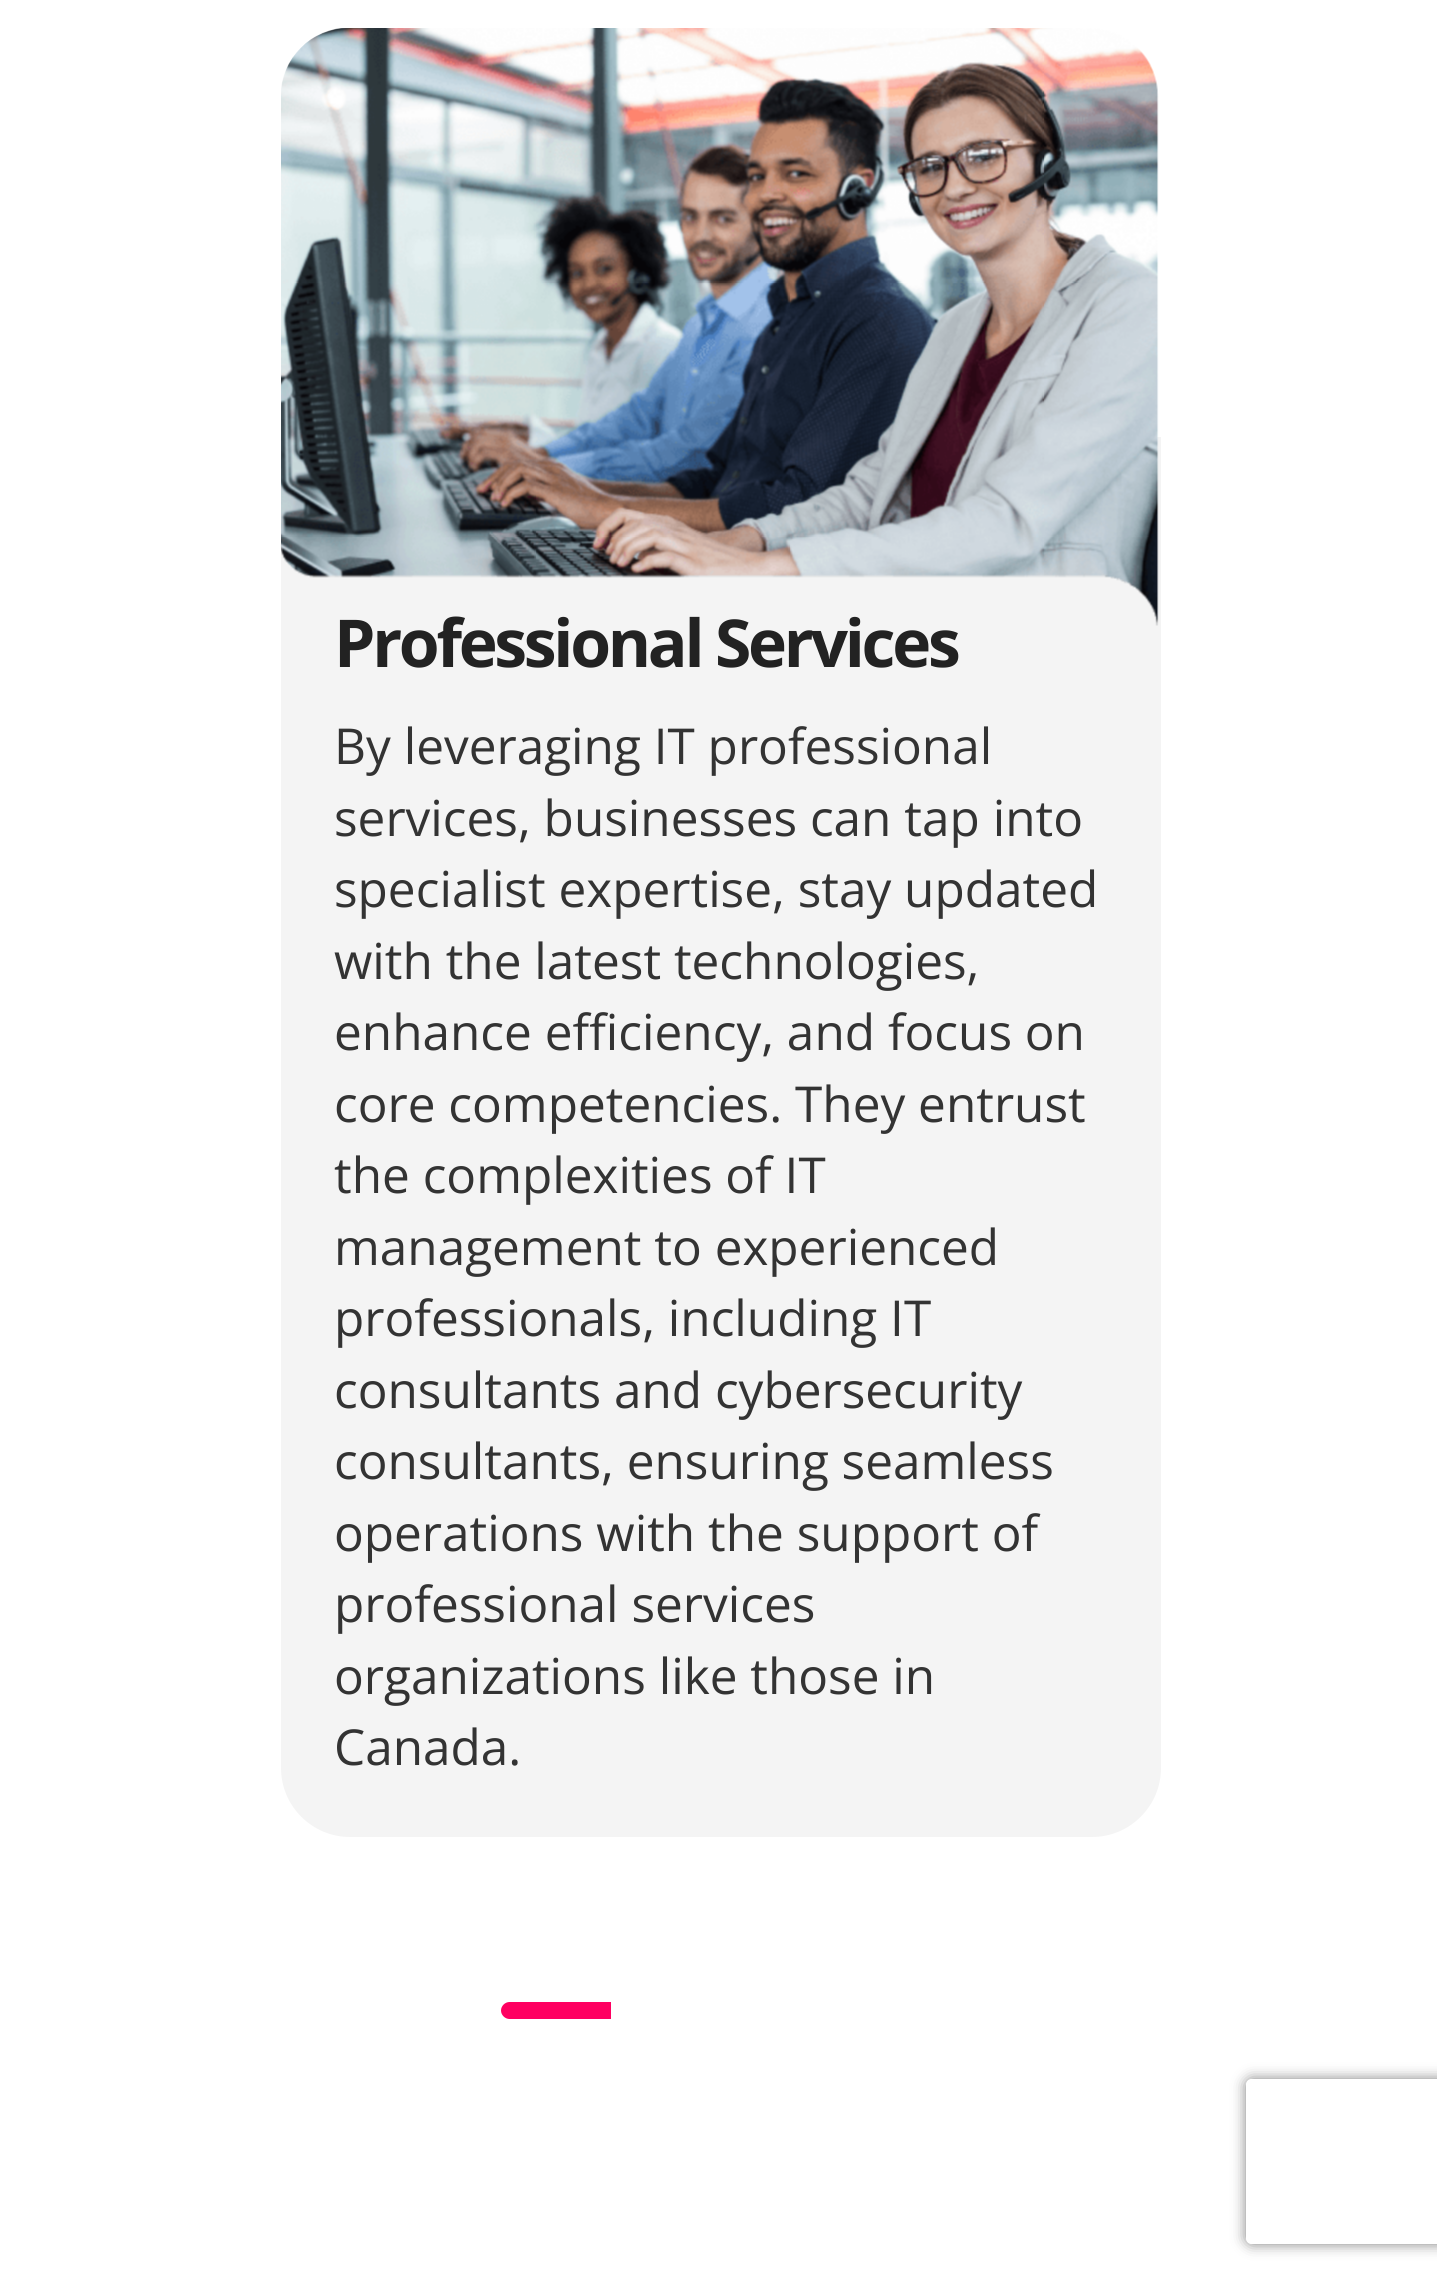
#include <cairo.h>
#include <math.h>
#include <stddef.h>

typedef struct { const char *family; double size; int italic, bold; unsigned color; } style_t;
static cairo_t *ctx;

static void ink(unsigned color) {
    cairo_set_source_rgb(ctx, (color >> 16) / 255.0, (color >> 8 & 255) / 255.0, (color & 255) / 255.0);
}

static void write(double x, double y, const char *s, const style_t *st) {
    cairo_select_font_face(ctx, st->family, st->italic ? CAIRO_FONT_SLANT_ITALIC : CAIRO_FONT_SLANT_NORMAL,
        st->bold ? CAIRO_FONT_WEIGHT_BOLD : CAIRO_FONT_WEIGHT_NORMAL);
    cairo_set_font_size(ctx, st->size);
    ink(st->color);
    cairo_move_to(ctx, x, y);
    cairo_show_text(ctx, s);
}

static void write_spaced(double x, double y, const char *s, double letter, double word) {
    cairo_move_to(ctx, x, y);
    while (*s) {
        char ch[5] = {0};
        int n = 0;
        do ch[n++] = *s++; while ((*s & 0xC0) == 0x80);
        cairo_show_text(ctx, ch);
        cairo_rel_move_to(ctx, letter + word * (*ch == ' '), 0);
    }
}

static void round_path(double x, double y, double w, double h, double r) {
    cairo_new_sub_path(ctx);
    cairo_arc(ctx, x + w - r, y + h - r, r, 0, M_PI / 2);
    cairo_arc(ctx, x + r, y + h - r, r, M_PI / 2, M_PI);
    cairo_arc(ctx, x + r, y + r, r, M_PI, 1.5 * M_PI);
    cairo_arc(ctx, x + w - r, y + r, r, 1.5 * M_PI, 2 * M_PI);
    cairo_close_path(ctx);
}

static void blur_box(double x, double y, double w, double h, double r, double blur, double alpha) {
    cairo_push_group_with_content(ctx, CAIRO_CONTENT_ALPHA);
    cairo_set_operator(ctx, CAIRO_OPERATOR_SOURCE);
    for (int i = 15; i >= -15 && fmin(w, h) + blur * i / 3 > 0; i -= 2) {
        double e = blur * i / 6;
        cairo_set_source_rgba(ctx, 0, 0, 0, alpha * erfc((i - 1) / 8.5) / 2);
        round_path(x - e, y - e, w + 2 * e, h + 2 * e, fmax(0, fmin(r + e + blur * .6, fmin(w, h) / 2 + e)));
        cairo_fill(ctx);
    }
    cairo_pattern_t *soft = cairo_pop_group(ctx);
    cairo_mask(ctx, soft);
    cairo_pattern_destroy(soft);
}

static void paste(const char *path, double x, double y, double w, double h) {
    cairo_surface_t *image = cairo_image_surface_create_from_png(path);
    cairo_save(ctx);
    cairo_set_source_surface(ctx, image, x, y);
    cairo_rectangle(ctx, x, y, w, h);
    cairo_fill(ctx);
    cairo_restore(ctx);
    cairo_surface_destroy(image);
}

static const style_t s1 = {"Open Sans", 49.5, 0, 0, 0x333333};

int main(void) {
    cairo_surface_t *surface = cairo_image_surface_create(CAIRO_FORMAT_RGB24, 1437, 2281);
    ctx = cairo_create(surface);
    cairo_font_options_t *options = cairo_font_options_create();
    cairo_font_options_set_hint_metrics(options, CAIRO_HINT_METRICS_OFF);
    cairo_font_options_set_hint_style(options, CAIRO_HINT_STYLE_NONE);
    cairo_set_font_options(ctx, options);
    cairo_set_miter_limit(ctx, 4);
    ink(0xffffff);
    cairo_paint(ctx);
    ink(0xf4f4f4);
    cairo_new_path(ctx);
    cairo_move_to(ctx, 281, 437);
    cairo_line_to(ctx, 1161, 437);
    cairo_line_to(ctx, 1161, 1768);
    cairo_curve_to(ctx, 1161, 1806, 1130, 1837, 1092, 1837);
    cairo_line_to(ctx, 350, 1837);
    cairo_curve_to(ctx, 312, 1837, 281, 1806, 281, 1768);
    cairo_close_path(ctx);
    cairo_fill(ctx);
    cairo_select_font_face(ctx, "Open Sans", CAIRO_FONT_SLANT_NORMAL, CAIRO_FONT_WEIGHT_BOLD);
    cairo_set_font_size(ctx, 66);
    ink(0x222222);
    write_spaced(334, 667, "Professional Services", -3.3, 0);
    paste("pic1.png", 281, 28, 878, 598);
    write(334, 764, "By leveraging IT professional", &s1);
    write(334, 836, "services, businesses can tap into", &s1);
    write(334, 907, "specialist expertise, stay updated", &s1);
    write(334, 979, "with the latest technologies,", &s1);
    write(334, 1050, "enhance efficiency, and focus on", &s1);
    write(334, 1122, "core competencies. They entrust", &s1);
    write(334, 1193, "the complexities of IT", &s1);
    write(334, 1265, "management to experienced", &s1);
    write(334, 1336, "professionals, including IT", &s1);
    write(334, 1408, "consultants and cybersecurity", &s1);
    write(334, 1479, "consultants, ensuring seamless", &s1);
    write(334, 1551, "operations with the support of", &s1);
    write(334, 1622, "professional services", &s1);
    write(334, 1694, "organizations like those in", &s1);
    write(334, 1765, "Canada.", &s1);
    ink(0xff0061);
    cairo_new_path(ctx);
    cairo_move_to(ctx, 509.5, 2002);
    cairo_line_to(ctx, 611, 2002);
    cairo_line_to(ctx, 611, 2019);
    cairo_line_to(ctx, 509.5, 2019);
    cairo_curve_to(ctx, 505, 2019, 501, 2015, 501, 2010.5);
    cairo_curve_to(ctx, 501, 2006, 505, 2002, 509.5, 2002);
    cairo_close_path(ctx);
    cairo_fill(ctx);
    cairo_save(ctx);
    cairo_set_fill_rule(ctx, CAIRO_FILL_RULE_EVEN_ODD);
    cairo_new_path(ctx);
    cairo_move_to(ctx, 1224, 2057);
    cairo_line_to(ctx, 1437, 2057);
    cairo_line_to(ctx, 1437, 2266);
    cairo_line_to(ctx, 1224, 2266);
    cairo_close_path(ctx);
    cairo_move_to(ctx, 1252, 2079);
    cairo_line_to(ctx, 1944, 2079);
    cairo_curve_to(ctx, 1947.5, 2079, 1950, 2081.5, 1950, 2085);
    cairo_line_to(ctx, 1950, 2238);
    cairo_curve_to(ctx, 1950, 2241.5, 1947.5, 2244, 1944, 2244);
    cairo_line_to(ctx, 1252, 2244);
    cairo_curve_to(ctx, 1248.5, 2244, 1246, 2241.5, 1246, 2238);
    cairo_line_to(ctx, 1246, 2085);
    cairo_curve_to(ctx, 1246, 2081.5, 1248.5, 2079, 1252, 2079);
    cairo_close_path(ctx);
    cairo_clip(ctx);
    ink(0x808080);
    blur_box(1246, 2079, 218, 165, 6, 7, 1);
    cairo_restore(ctx);
    cairo_surface_write_to_png(surface, "screenshot.png");
    cairo_font_options_destroy(options);
    cairo_destroy(ctx);
    cairo_surface_destroy(surface);
    return 0;
}
